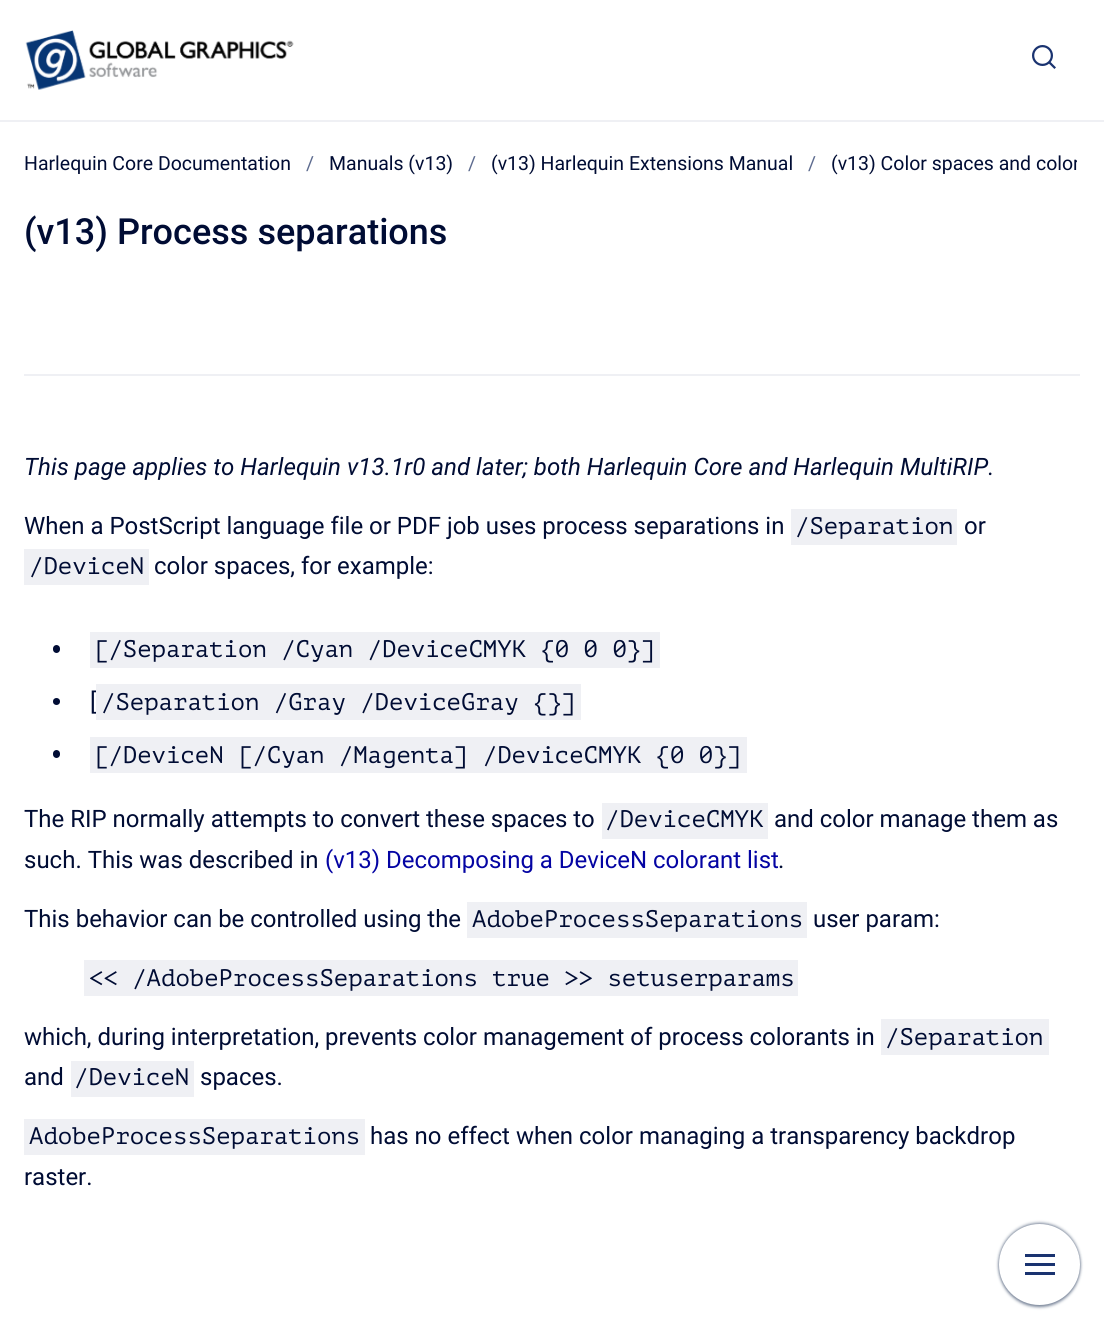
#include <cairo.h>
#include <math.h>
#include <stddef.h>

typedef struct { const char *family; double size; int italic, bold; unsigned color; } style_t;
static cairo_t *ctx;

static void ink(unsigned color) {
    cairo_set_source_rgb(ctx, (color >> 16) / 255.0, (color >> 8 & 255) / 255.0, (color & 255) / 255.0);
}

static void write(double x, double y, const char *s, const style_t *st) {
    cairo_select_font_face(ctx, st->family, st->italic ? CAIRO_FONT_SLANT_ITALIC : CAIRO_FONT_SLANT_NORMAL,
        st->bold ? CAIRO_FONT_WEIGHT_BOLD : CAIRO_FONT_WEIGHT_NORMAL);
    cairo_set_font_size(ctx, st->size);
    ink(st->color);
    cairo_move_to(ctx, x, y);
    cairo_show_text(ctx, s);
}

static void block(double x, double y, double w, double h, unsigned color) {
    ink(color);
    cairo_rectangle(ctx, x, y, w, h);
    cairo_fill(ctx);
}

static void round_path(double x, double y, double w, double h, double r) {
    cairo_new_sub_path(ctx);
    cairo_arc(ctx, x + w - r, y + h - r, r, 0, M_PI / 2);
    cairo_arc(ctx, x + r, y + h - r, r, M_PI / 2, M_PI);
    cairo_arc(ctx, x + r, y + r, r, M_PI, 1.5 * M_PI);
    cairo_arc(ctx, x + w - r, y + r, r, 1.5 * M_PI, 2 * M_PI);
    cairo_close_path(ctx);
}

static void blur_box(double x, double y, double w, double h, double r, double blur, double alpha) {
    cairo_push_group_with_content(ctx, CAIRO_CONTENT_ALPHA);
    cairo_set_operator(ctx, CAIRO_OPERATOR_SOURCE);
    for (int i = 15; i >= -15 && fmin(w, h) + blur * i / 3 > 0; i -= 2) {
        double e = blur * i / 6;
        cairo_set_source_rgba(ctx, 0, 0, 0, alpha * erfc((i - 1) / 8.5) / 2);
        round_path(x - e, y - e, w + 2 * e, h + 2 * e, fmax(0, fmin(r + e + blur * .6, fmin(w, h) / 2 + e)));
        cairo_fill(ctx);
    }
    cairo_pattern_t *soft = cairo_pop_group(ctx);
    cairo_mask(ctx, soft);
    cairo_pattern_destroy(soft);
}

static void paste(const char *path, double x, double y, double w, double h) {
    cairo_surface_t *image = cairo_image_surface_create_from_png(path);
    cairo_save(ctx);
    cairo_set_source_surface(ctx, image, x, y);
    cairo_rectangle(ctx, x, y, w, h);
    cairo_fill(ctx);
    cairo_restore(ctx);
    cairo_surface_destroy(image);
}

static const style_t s1 = {"Roboto", 19.5, 0, 0, 0x000c34};
static const style_t s2 = {"Roboto", 19.5, 0, 0, 0x5d6b8f};
static const style_t s3 = {"Roboto Medium", 36, 0, 0, 0x000c34};
static const style_t s4 = {"Roboto", 24, 1, 0, 0x000c34};
static const style_t s5 = {"Roboto", 24, 0, 0, 0x000c34};
static const style_t s6 = {"PT Mono", 24, 0, 0, 0x000c34};
static const style_t s7 = {"Roboto", 24, 0, 0, 0x0404a3};

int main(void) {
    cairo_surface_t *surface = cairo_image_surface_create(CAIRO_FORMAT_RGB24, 1104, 1329);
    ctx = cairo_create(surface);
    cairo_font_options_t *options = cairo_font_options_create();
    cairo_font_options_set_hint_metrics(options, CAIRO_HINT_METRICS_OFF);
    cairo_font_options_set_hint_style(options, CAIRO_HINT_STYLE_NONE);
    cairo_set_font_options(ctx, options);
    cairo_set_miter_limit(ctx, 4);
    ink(0xffffff);
    cairo_paint(ctx);
    block(0, 120, 1104, 2, 0xeff0f4);
    paste("pic1.png", 25, 30, 269, 60);
    paste("pic2.png", 1032, 45, 24, 24);
    write(24, 170, "Harlequin Core Documentation", &s1);
    write(306, 170, "/", &s2);
    write(329, 170, "Manuals (v13)", &s1);
    write(468, 170, "/", &s2);
    write(491, 170, "(v13) Harlequin Extensions Manual", &s1);
    write(808, 170, "/", &s2);
    cairo_save(ctx);
    cairo_rectangle(ctx, 21, 146, 1056, 36);
    cairo_clip(ctx);
    write(831, 170, "(v13) Color spaces and color", &s1);
    cairo_restore(ctx);
    write(24, 244, "(v13) Process separations", &s3);
    block(24, 374, 1056, 2, 0xeff0f4);
    write(24, 475, "This page applies to Harlequin v13.1r0 and later; both Harlequin Core and Harlequin MultiRIP.", &s4);
    write(24, 534, "When a PostScript language file or PDF job uses process separations in", &s5);
    block(791, 509, 166, 36, 0xeff0f4);
    write(795, 534, "/Separation", &s6);
    write(964, 534, "or", &s5);
    block(24, 549, 125, 36, 0xeff0f4);
    write(29, 574, "/DeviceN", &s6);
    write(154, 574, "color spaces, for example:", &s5);
    round_path(53, 645, 7, 8, 3.5);
    cairo_fill(ctx);
    block(90, 632, 570, 36, 0xeff0f4);
    write(94, 657, "[/Separation /Cyan /DeviceCMYK {0 0 0}]", &s6);
    cairo_new_path(ctx);
    cairo_arc(ctx, 56.5, 701.5, 3.5, 0, 2 * M_PI);
    cairo_fill(ctx);
    write(90, 710, "[", &s5);
    block(96, 684, 485, 36, 0xeff0f4);
    write(101, 710, "/Separation /Gray /DeviceGray {}]", &s6);
    round_path(53, 750, 7, 8, 3.5);
    cairo_fill(ctx);
    block(90, 737, 657, 36, 0xeff0f4);
    write(94, 763, "[/DeviceN [/Cyan /Magenta] /DeviceCMYK {0 0}]", &s6);
    write(24, 827, "The RIP normally attempts to convert these spaces to", &s5);
    block(602, 803, 166, 36, 0xeff0f4);
    write(605, 827, "/DeviceCMYK", &s6);
    write(774, 827, "and color manage them as", &s5);
    write(24, 868, "such. This was described in", &s5);
    write(325, 868, "(v13) Decomposing a DeviceN colorant list", &s7);
    write(778, 868, ".", &s5);
    write(24, 927, "This behavior can be controlled using the", &s5);
    block(467, 902, 340, 36, 0xeff0f4);
    write(472, 927, "AdobeProcessSeparations", &s6);
    write(813, 927, "user param:", &s5);
    block(84, 960, 714, 36, 0xeff0f4);
    write(89, 986, "<< /AdobeProcessSeparations true >> setuserparams", &s6);
    write(24, 1045, "which, during interpretation, prevents color management of process colorants in", &s5);
    block(881, 1019, 168, 36, 0xeff0f4);
    write(885, 1045, "/Separation", &s6);
    write(24, 1085, "and", &s5);
    block(71, 1061, 123, 36, 0xeff0f4);
    write(74, 1085, "/DeviceN", &s6);
    write(200, 1085, "spaces.", &s5);
    block(24, 1119, 341, 36, 0xeff0f4);
    write(29, 1144, "AdobeProcessSeparations", &s6);
    write(370, 1144, "has no effect when color managing a transparency backdrop", &s5);
    write(24, 1185, "raster.", &s5);
    ink(0x7a869a);
    blur_box(999, 1223, 81, 81, 40.5, 1.5, 1);
    blur_box(999, 1226, 81, 81, 40.5, 1.5, 1);
    ink(0xffffff);
    cairo_arc(ctx, 1039.5, 1264.5, 40.5, 0, 2 * M_PI);
    cairo_fill(ctx);
    block(1025, 1254, 30, 3, 0x1a3370);
    block(1025, 1263, 30, 3, 0x1a3370);
    block(1025, 1272, 30, 3, 0x1a3370);
    cairo_surface_write_to_png(surface, "screenshot.png");
    cairo_font_options_destroy(options);
    cairo_destroy(ctx);
    cairo_surface_destroy(surface);
    return 0;
}
